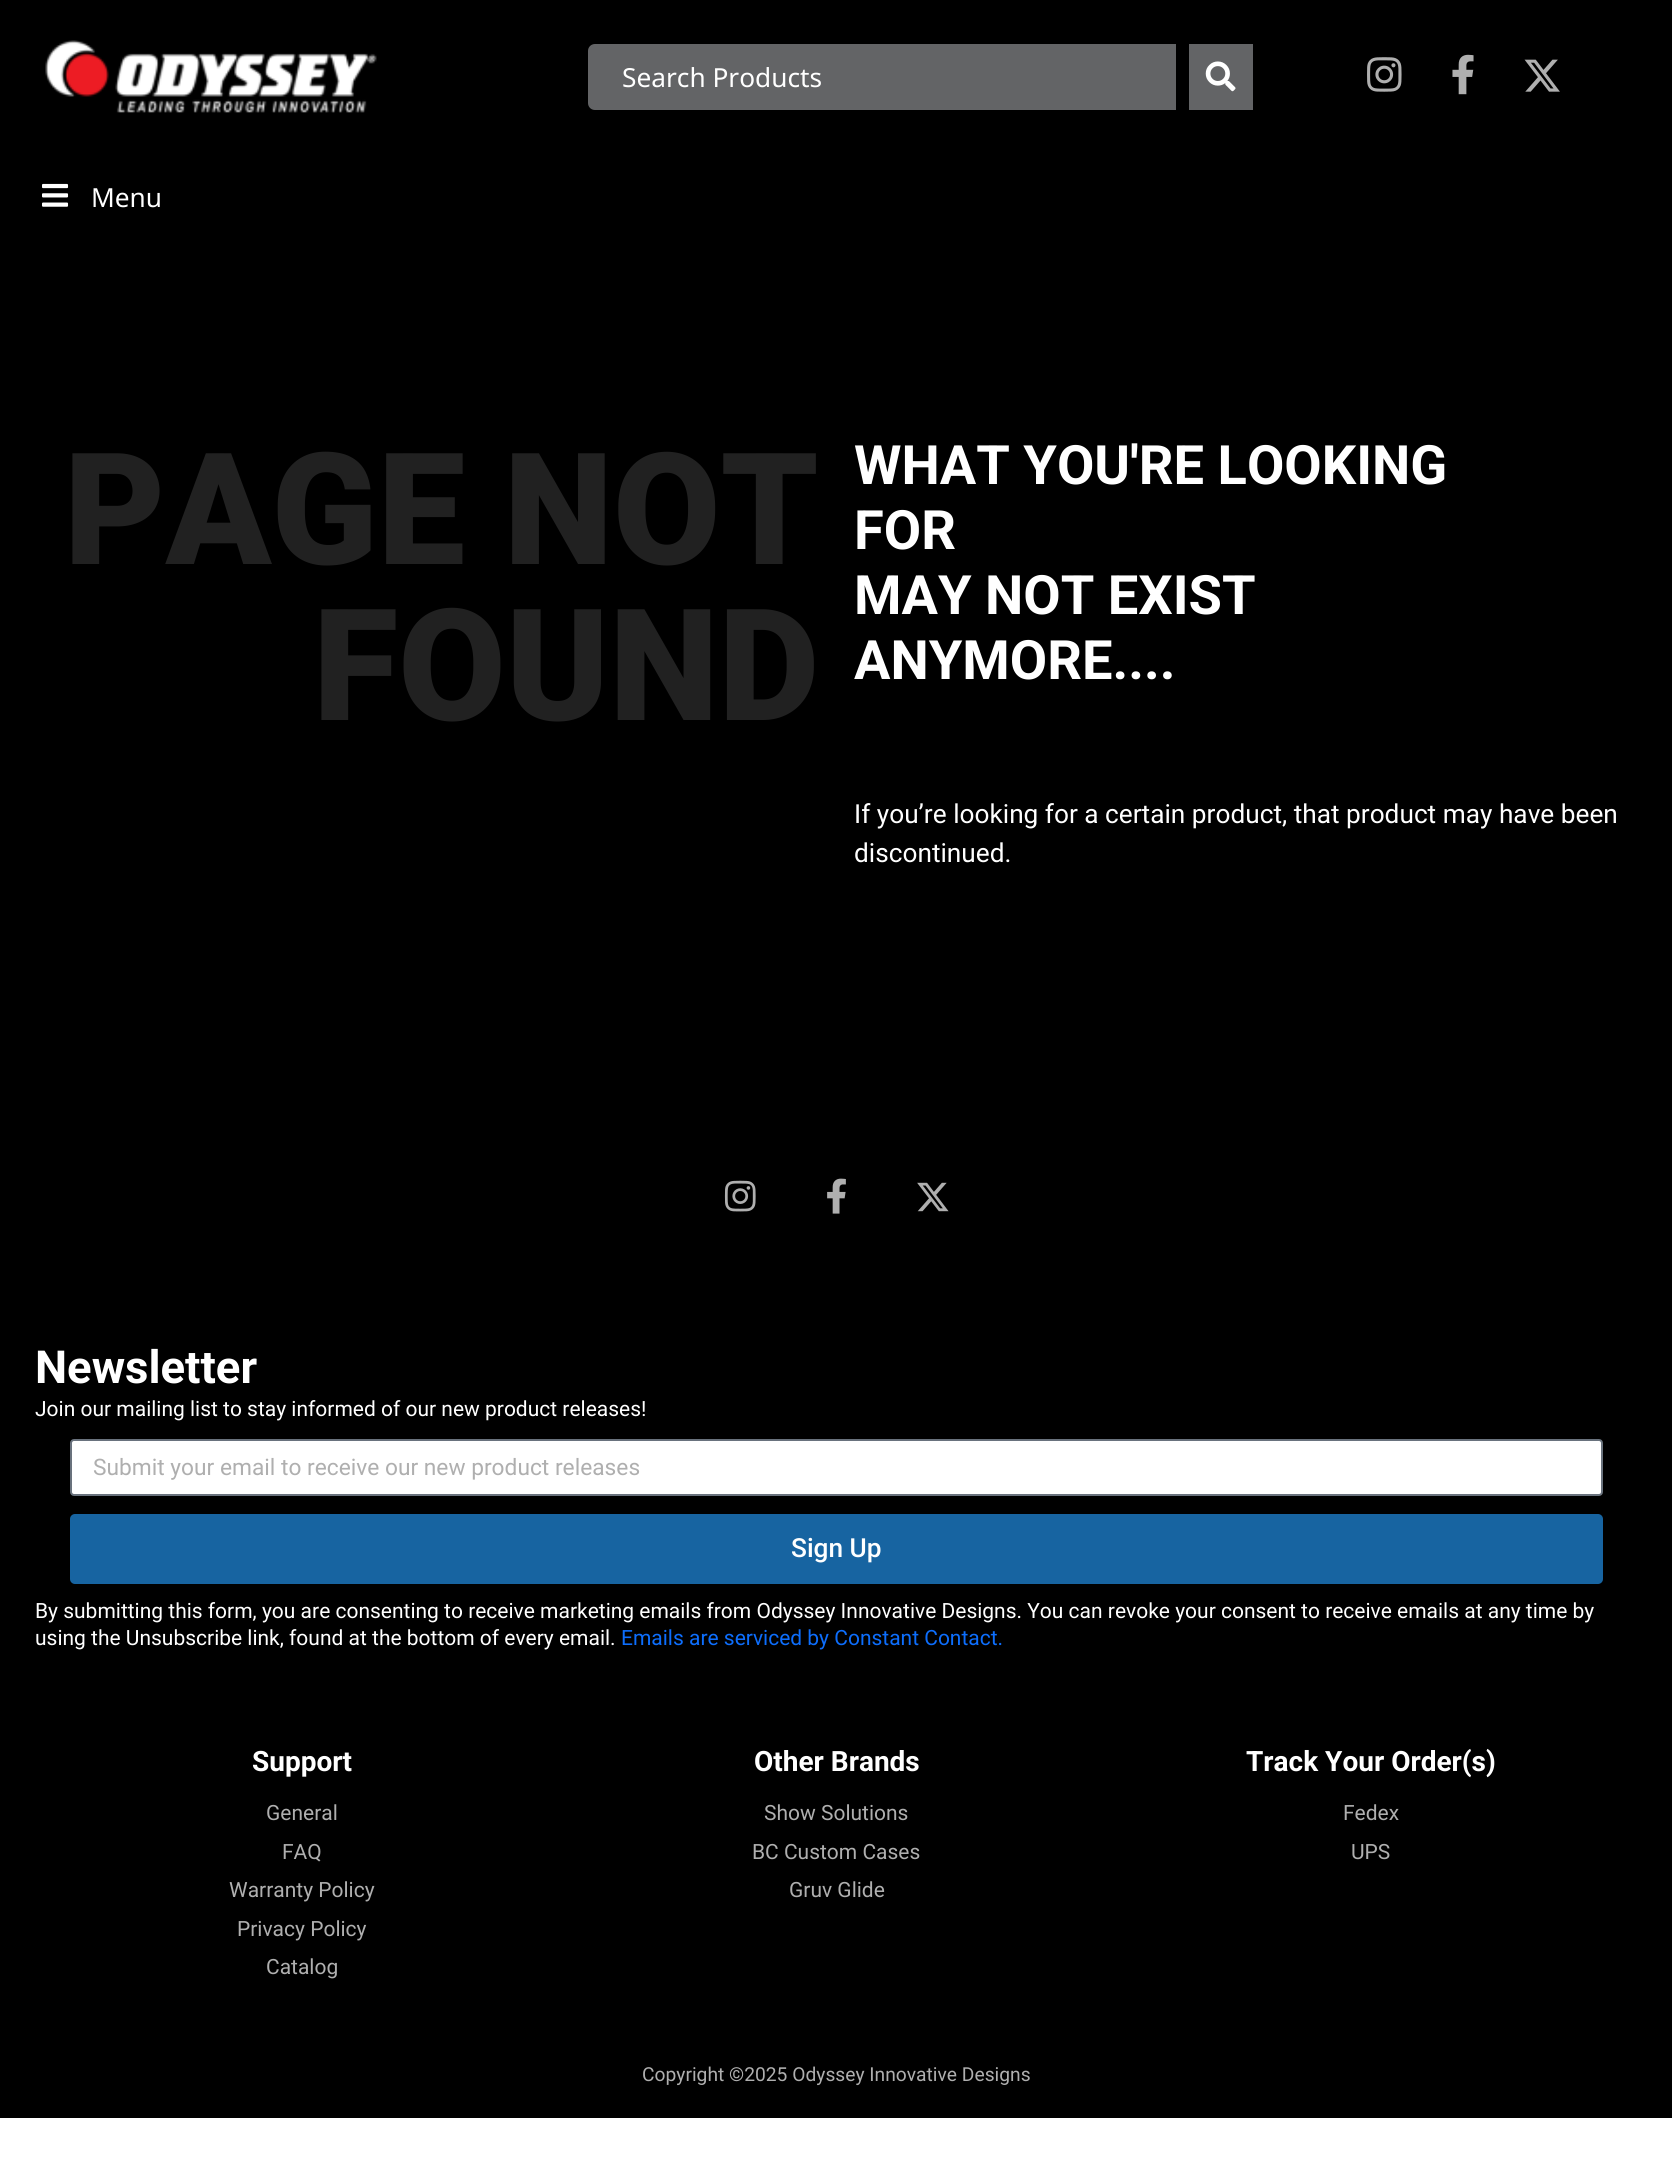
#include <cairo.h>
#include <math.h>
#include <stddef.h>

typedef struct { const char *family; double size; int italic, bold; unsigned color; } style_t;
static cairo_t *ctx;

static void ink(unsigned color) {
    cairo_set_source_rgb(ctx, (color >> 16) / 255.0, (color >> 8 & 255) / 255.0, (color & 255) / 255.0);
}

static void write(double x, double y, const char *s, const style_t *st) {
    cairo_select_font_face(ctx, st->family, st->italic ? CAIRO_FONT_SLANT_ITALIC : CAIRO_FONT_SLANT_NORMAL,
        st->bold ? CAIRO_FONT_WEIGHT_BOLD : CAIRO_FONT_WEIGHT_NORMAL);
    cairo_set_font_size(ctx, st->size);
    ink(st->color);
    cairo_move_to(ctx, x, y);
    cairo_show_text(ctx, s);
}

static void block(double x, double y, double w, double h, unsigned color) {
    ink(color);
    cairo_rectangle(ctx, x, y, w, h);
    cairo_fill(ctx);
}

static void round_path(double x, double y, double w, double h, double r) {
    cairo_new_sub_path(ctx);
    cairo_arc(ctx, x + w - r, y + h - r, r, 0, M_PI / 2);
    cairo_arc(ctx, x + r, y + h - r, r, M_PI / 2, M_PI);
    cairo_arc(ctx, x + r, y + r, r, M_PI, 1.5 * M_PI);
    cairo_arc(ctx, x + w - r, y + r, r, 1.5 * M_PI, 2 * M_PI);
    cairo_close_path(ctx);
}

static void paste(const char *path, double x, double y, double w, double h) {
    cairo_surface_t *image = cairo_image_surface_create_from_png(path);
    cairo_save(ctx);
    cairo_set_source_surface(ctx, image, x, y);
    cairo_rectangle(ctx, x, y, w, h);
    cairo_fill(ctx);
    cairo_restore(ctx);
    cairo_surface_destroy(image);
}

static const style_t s1 = {"Noto Sans", 26.25, 0, 0, 0xffffff};
static const style_t s2 = {"Roboto Black", 155.75, 0, 0, 0x212121};
static const style_t s3 = {"Roboto", 54.25, 0, 1, 0xffffff};
static const style_t s4 = {"Roboto", 26.25, 0, 0, 0xffffff};
static const style_t s5 = {"Roboto", 45.5, 0, 1, 0xffffff};
static const style_t s6 = {"Roboto", 21, 0, 0, 0xffffff};
static const style_t s7 = {"Roboto", 22.75, 0, 0, 0xafafaf};
static const style_t s8 = {"Roboto Medium", 26.25, 0, 0, 0xffffff};
static const style_t s9 = {"Roboto", 21, 0, 0, 0x0d6efd};
static const style_t s10 = {"Roboto", 28, 0, 1, 0xffffff};
static const style_t s11 = {"Roboto", 21, 0, 0, 0xafafaf};
static const style_t s12 = {"Roboto", 19.25, 0, 0, 0xafafaf};

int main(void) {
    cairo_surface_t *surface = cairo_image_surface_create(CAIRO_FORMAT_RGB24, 1672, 2178);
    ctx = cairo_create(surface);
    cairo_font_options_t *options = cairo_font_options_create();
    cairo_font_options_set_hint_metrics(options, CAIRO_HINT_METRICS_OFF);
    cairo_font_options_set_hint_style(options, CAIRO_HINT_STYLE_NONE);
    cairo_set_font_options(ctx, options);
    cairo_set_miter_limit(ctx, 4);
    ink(0xffffff);
    cairo_paint(ctx);
    block(0, 0, 1672, 2118, 0x000000);
    paste("pic1.png", 45, 40, 332, 73);
    ink(0x636466);
    cairo_new_path(ctx);
    cairo_move_to(ctx, 595, 43);
    cairo_line_to(ctx, 1177, 43);
    cairo_line_to(ctx, 1177, 111);
    cairo_line_to(ctx, 595, 111);
    cairo_curve_to(ctx, 590.5, 111, 587, 107.5, 587, 103);
    cairo_line_to(ctx, 587, 51);
    cairo_curve_to(ctx, 587, 46.5, 590.5, 43, 595, 43);
    cairo_close_path(ctx);
    cairo_fill_preserve(ctx);
    ink(0x000000);
    cairo_stroke(ctx);
    write(622, 87, "Search Products", &s1);
    block(1189, 44, 64, 66, 0x636466);
    paste("pic2.png", 1205, 61, 31, 31);
    paste("pic3.png", 1367, 57, 35, 35);
    paste("pic4.png", 1452, 54, 22, 41);
    paste("pic5.png", 1524, 59, 36, 33);
    paste("pic6.png", 42, 183, 27, 24);
    write(91, 207, "Menu", &s1);
    write(64, 564, "PAGE NOT", &s2);
    write(313, 720, "FOUND", &s2);
    write(854, 484, "WHAT YOU'RE LOOKING", &s3);
    write(854, 549, "FOR", &s3);
    write(854, 614, "MAY NOT EXIST", &s3);
    write(854, 679, "ANYMORE....", &s3);
    write(854, 823, "If you’re looking for a certain product, that product may have been", &s4);
    write(854, 862, "discontinued.", &s4);
    paste("pic7.png", 724, 1180, 32, 32);
    paste("pic8.png", 827, 1178, 19, 36);
    paste("pic9.png", 917, 1182, 32, 30);
    write(35, 1383, "Newsletter", &s5);
    write(35, 1416, "Join our mailing list to stay informed of our new product releases!", &s6);
    round_path(71, 1440, 1531, 55, 3);
    cairo_fill_preserve(ctx);
    ink(0x69727d);
    cairo_stroke(ctx);
    write(93, 1475, "Submit your email to receive our new product releases", &s7);
    ink(0x1764a1);
    round_path(70, 1514, 1533, 70, 5);
    cairo_fill(ctx);
    write(791, 1557, "Sign Up", &s8);
    write(35, 1618, "By submitting this form, you are consenting to receive marketing emails from Odyssey Innovative Designs. You can revoke your consent to receive emails at any time by", &s6);
    write(35, 1645, "using the Unsubscribe link, found at the bottom of every email.", &s6);
    write(621, 1645, "Emails are serviced by Constant Contact.", &s9);
    write(252, 1771, "Support", &s10);
    write(266, 1820, "General", &s11);
    write(282, 1859, "FAQ", &s11);
    write(229, 1897, "Warranty Policy", &s11);
    write(237, 1936, "Privacy Policy", &s11);
    write(266, 1974, "Catalog", &s11);
    write(754, 1771, "Other Brands", &s10);
    write(764, 1820, "Show Solutions", &s11);
    write(752, 1859, "BC Custom Cases", &s11);
    write(789, 1897, "Gruv Glide", &s11);
    write(1246, 1771, "Track Your Order(s)", &s10);
    write(1343, 1820, "Fedex", &s11);
    write(1351, 1859, "UPS", &s11);
    write(642, 2081, "Copyright ©2025 Odyssey Innovative Designs", &s12);
    cairo_surface_write_to_png(surface, "screenshot.png");
    cairo_font_options_destroy(options);
    cairo_destroy(ctx);
    cairo_surface_destroy(surface);
    return 0;
}
